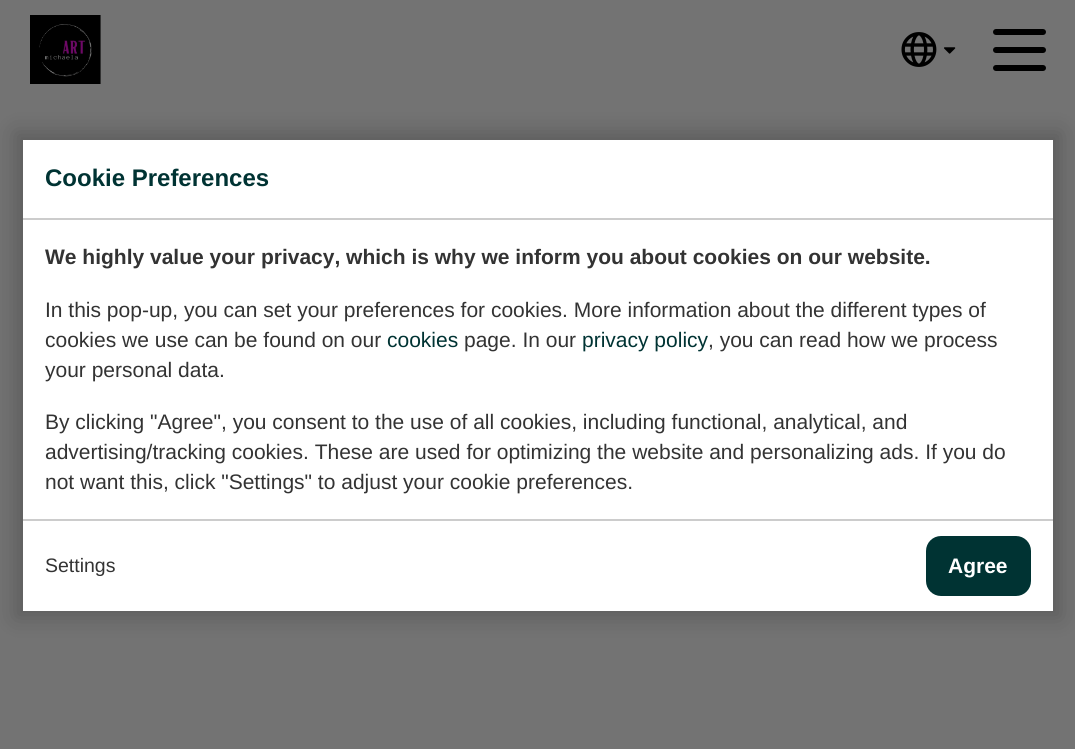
#include <cairo.h>
#include <math.h>
#include <stddef.h>

typedef struct { const char *family; double size; int italic, bold; unsigned color; } style_t;
static cairo_t *ctx;

static void ink(unsigned color) {
    cairo_set_source_rgb(ctx, (color >> 16) / 255.0, (color >> 8 & 255) / 255.0, (color & 255) / 255.0);
}

static void write(double x, double y, const char *s, const style_t *st) {
    cairo_select_font_face(ctx, st->family, st->italic ? CAIRO_FONT_SLANT_ITALIC : CAIRO_FONT_SLANT_NORMAL,
        st->bold ? CAIRO_FONT_WEIGHT_BOLD : CAIRO_FONT_WEIGHT_NORMAL);
    cairo_set_font_size(ctx, st->size);
    ink(st->color);
    cairo_move_to(ctx, x, y);
    cairo_show_text(ctx, s);
}

static void block(double x, double y, double w, double h, unsigned color) {
    ink(color);
    cairo_rectangle(ctx, x, y, w, h);
    cairo_fill(ctx);
}

static void round_path(double x, double y, double w, double h, double r) {
    cairo_new_sub_path(ctx);
    cairo_arc(ctx, x + w - r, y + h - r, r, 0, M_PI / 2);
    cairo_arc(ctx, x + r, y + h - r, r, M_PI / 2, M_PI);
    cairo_arc(ctx, x + r, y + r, r, M_PI, 1.5 * M_PI);
    cairo_arc(ctx, x + w - r, y + r, r, 1.5 * M_PI, 2 * M_PI);
    cairo_close_path(ctx);
}

static void blur_box(double x, double y, double w, double h, double r, double blur, double alpha) {
    cairo_push_group_with_content(ctx, CAIRO_CONTENT_ALPHA);
    cairo_set_operator(ctx, CAIRO_OPERATOR_SOURCE);
    for (int i = 15; i >= -15 && fmin(w, h) + blur * i / 3 > 0; i -= 2) {
        double e = blur * i / 6;
        cairo_set_source_rgba(ctx, 0, 0, 0, alpha * erfc((i - 1) / 8.5) / 2);
        round_path(x - e, y - e, w + 2 * e, h + 2 * e, fmax(0, fmin(r + e + blur * .6, fmin(w, h) / 2 + e)));
        cairo_fill(ctx);
    }
    cairo_pattern_t *soft = cairo_pop_group(ctx);
    cairo_mask(ctx, soft);
    cairo_pattern_destroy(soft);
}

static void paste(const char *path, double x, double y, double w, double h) {
    cairo_surface_t *image = cairo_image_surface_create_from_png(path);
    cairo_save(ctx);
    cairo_set_source_surface(ctx, image, x, y);
    cairo_rectangle(ctx, x, y, w, h);
    cairo_fill(ctx);
    cairo_restore(ctx);
    cairo_surface_destroy(image);
}

static const style_t s1 = {"Liberation Sans", 24, 0, 1, 0x003333};
static const style_t s2 = {"Liberation Sans", 21, 0, 1, 0x333333};
static const style_t s3 = {"Liberation Sans", 21, 0, 0, 0x333333};
static const style_t s4 = {"Liberation Sans", 21, 0, 0, 0x003333};
static const style_t s5 = {"Liberation Sans", 19.5, 0, 0, 0x333333};
static const style_t s6 = {"Liberation Sans", 21, 0, 1, 0xffffff};

int main(void) {
    cairo_surface_t *surface = cairo_image_surface_create(CAIRO_FORMAT_RGB24, 1075, 749);
    ctx = cairo_create(surface);
    cairo_font_options_t *options = cairo_font_options_create();
    cairo_font_options_set_hint_metrics(options, CAIRO_HINT_METRICS_OFF);
    cairo_font_options_set_hint_style(options, CAIRO_HINT_STYLE_NONE);
    cairo_set_font_options(ctx, options);
    cairo_set_miter_limit(ctx, 4);
    ink(0x737373);
    cairo_paint(ctx);
    paste("pic1.png", 30, 15, 71, 69);
    paste("pic2.png", 901, 32, 36, 35);
    paste("pic3.png", 944, 47, 12, 7);
    ink(0x000000);
    round_path(993, 29, 53, 6, 3);
    cairo_fill(ctx);
    round_path(993, 47, 53, 6, 3);
    cairo_fill(ctx);
    round_path(993, 65, 53, 6, 3);
    cairo_fill(ctx);
    ink(0x000000);
    blur_box(15, 132, 1046, 486, 0, 11, 0.2);
    block(23, 140, 1030, 471, 0xffffff);
    block(23, 218, 1030, 2, 0xcccccc);
    write(45, 186, "Cookie Preferences", &s1);
    write(45, 264, "We highly value your privacy, which is why we inform you about cookies on our website.", &s2);
    write(45, 317, "In this pop-up, you can set your preferences for cookies. More information about the different types of", &s3);
    write(45, 347, "cookies we use can be found on our", &s3);
    write(387, 347, "cookies", &s4);
    write(464, 347, "page. In our", &s3);
    write(582, 347, "privacy policy", &s4);
    write(708, 347, ", you can read how we process", &s3);
    write(45, 377, "your personal data.", &s3);
    write(45, 429, "By clicking \"Agree\", you consent to the use of all cookies, including functional, analytical, and", &s3);
    write(45, 459, "advertising/tracking cookies. These are used for optimizing the website and personalizing ads. If you do", &s3);
    write(45, 489, "not want this, click \"Settings\" to adjust your cookie preferences.", &s3);
    block(23, 519, 1030, 2, 0xcccccc);
    write(45, 572, "Settings", &s5);
    ink(0x003333);
    round_path(927, 537, 103, 58, 14);
    cairo_fill_preserve(ctx);
    cairo_stroke(ctx);
    write(948, 573, "Agree", &s6);
    cairo_surface_write_to_png(surface, "screenshot.png");
    cairo_font_options_destroy(options);
    cairo_destroy(ctx);
    cairo_surface_destroy(surface);
    return 0;
}
